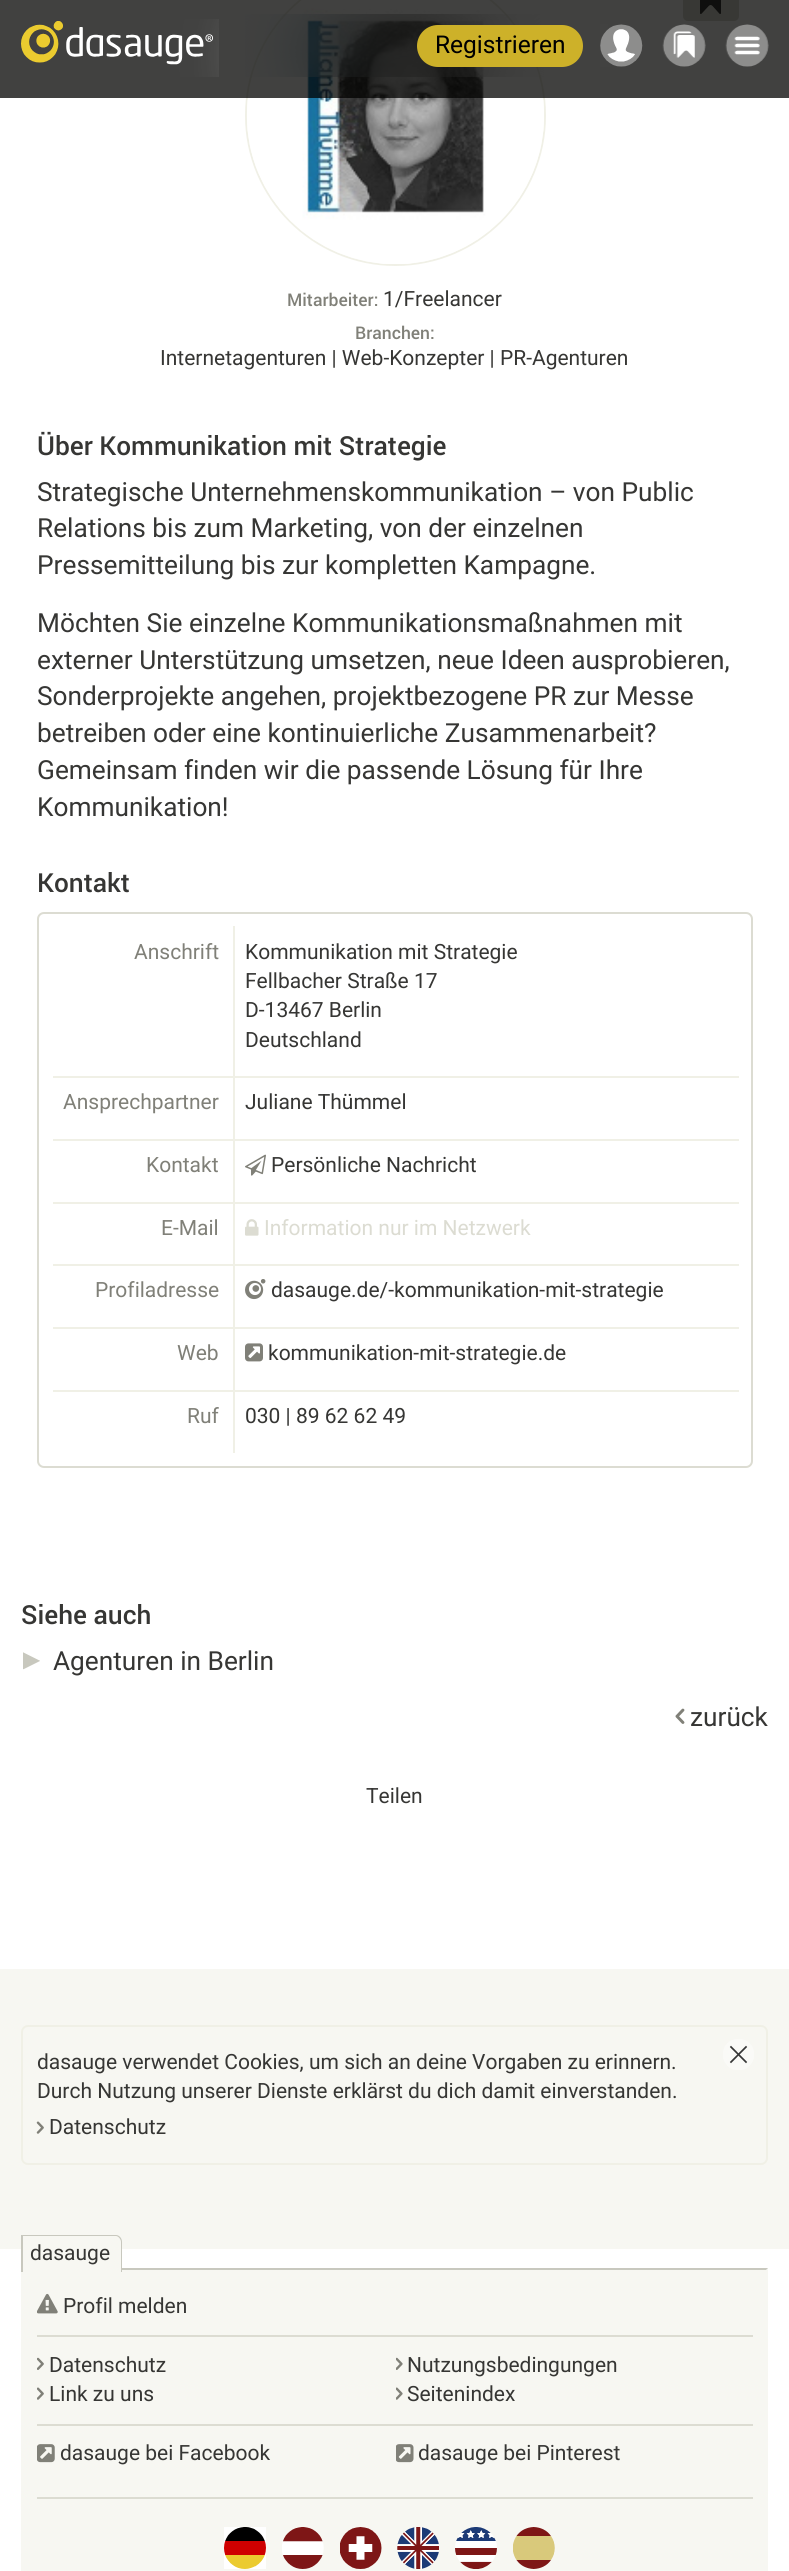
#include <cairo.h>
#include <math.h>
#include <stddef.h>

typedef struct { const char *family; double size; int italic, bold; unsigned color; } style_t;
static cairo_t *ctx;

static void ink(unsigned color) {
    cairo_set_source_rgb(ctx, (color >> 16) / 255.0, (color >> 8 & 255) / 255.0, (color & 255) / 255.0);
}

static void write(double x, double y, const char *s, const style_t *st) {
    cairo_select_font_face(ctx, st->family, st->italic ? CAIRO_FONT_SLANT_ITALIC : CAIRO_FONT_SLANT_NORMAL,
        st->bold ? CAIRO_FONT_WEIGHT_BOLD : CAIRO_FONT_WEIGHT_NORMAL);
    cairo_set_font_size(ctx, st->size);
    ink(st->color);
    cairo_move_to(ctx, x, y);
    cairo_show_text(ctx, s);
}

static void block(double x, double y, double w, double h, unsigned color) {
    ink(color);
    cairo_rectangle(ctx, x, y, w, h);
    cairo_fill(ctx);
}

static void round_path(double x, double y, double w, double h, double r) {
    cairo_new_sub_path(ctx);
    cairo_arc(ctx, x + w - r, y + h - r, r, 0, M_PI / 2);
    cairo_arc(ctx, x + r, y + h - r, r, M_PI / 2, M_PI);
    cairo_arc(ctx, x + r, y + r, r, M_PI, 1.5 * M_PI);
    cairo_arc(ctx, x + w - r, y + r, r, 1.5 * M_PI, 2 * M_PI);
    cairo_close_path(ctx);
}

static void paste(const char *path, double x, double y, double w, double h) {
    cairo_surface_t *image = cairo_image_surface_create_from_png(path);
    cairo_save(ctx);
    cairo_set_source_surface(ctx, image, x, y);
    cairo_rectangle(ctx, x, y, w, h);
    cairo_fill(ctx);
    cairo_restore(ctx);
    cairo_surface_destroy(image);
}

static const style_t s1 = {"Roboto", 24.5, 0, 0, 0x000000};
static const style_t s2 = {"Roboto Medium", 17.5, 0, 0, 0x808078};
static const style_t s3 = {"Roboto", 21, 0, 0, 0x363634};
static const style_t s4 = {"Roboto Medium", 26.25, 0, 0, 0x363634};
static const style_t s5 = {"Roboto", 26.25, 0, 0, 0x363634};
static const style_t s6 = {"Roboto", 21, 0, 0, 0x808078};
static const style_t s7 = {"Roboto", 21, 0, 0, 0xdcdcd2};

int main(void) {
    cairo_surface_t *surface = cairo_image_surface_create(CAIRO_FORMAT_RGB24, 789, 2571);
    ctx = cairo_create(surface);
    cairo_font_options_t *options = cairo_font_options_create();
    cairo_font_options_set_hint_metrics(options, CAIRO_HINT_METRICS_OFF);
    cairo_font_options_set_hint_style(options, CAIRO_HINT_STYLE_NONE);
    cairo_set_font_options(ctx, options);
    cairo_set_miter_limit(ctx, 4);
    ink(0xffffff);
    cairo_paint(ctx);
    ink(0xdcdcd2);
    round_path(683, -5, 56, 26, 5);
    cairo_fill(ctx);
    paste("pic5.png", 700, 0, 21, 14);
    cairo_arc(ctx, 395.5, 115.5, 149.5, 0, 2 * M_PI);
    ink(0xf0f0e6);
    cairo_stroke(ctx);
    paste("pic6.png", 245, 0, 299, 264);
    cairo_set_source_rgba(ctx, 0.008, 0.008, 0, 0.75);
    cairo_rectangle(ctx, 0, 0, 789, 98);
    cairo_fill(ctx);
    paste("pic1.png", 21, 19, 198, 58);
    ink(0xcdb129);
    round_path(417, 25, 166, 42, 21);
    cairo_fill(ctx);
    write(435, 53, "Registrieren", &s1);
    paste("pic2.png", 600, 24, 43, 43);
    paste("pic3.png", 662, 24, 44, 43);
    paste("pic4.png", 725, 24, 44, 43);
    write(287, 306, "Mitarbeiter:", &s2);
    write(383, 306, "1/Freelancer", &s3);
    write(355, 339, "Branchen:", &s2);
    write(160, 365, "Internetagenturen | Web-Konzepter | PR-Agenturen", &s3);
    write(37, 455, "Über Kommunikation mit Strategie", &s4);
    write(37, 501, "Strategische Unternehmenskommunikation – von Public", &s5);
    write(37, 537, "Relations bis zum Marketing, von der einzelnen", &s5);
    write(37, 574, "Pressemitteilung bis zur kompletten Kampagne.", &s5);
    write(37, 632, "Möchten Sie einzelne Kommunikationsmaßnahmen mit", &s5);
    write(37, 669, "externer Unterstützung umsetzen, neue Ideen ausprobieren,", &s5);
    write(37, 705, "Sonderprojekte angehen, projektbezogene PR zur Messe", &s5);
    write(37, 742, "betreiben oder eine kontinuierliche Zusammenarbeit?", &s5);
    write(37, 779, "Gemeinsam finden wir die passende Lösung für Ihre", &s5);
    write(37, 816, "Kommunikation!", &s5);
    write(37, 892, "Kontakt", &s4);
    round_path(38, 913, 714, 554, 6);
    ink(0xdcdcd2);
    cairo_stroke(ctx);
    write(134, 959, "Anschrift", &s6);
    block(233, 1076, 506, 2, 0xf0f0e6);
    block(233, 1139, 506, 2, 0xf0f0e6);
    block(233, 1202, 506, 2, 0xf0f0e6);
    block(233, 1264, 506, 2, 0xf0f0e6);
    block(233, 1327, 506, 2, 0xf0f0e6);
    block(233, 1390, 506, 2, 0xf0f0e6);
    block(233, 1390, 2, 63, 0xf0f0e6);
    block(53, 1390, 182, 2, 0xf0f0e6);
    block(233, 1327, 2, 64, 0xf0f0e6);
    block(53, 1327, 182, 2, 0xf0f0e6);
    block(233, 1264, 2, 64, 0xf0f0e6);
    block(53, 1264, 182, 2, 0xf0f0e6);
    block(233, 1202, 2, 63, 0xf0f0e6);
    block(53, 1202, 182, 2, 0xf0f0e6);
    block(233, 1139, 2, 65, 0xf0f0e6);
    block(53, 1139, 182, 2, 0xf0f0e6);
    block(233, 1076, 2, 65, 0xf0f0e6);
    block(53, 1076, 182, 2, 0xf0f0e6);
    block(233, 926, 2, 152, 0xf0f0e6);
    write(245, 959, "Kommunikation mit Strategie", &s3);
    write(245, 988, "Fellbacher Straße 17", &s3);
    write(245, 1017, "D-13467 Berlin", &s3);
    write(245, 1047, "Deutschland", &s3);
    write(63, 1109, "Ansprechpartner", &s6);
    write(245, 1109, "Juliane Thümmel", &s3);
    write(146, 1172, "Kontakt", &s6);
    paste("pic7.png", 245, 1154, 21, 22);
    write(271, 1172, "Persönliche Nachricht", &s3);
    write(161, 1235, "E-Mail", &s6);
    paste("pic8.png", 245, 1219, 14, 17);
    write(264, 1235, "Information nur im Netzwerk", &s7);
    write(95, 1297, "Profiladresse", &s6);
    paste("pic9.png", 245, 1279, 21, 21);
    write(271, 1297, "dasauge.de/-kommunikation-mit-strategie", &s3);
    write(177, 1360, "Web", &s6);
    paste("pic10.png", 245, 1343, 18, 19);
    write(268, 1360, "kommunikation-mit-strategie.de", &s3);
    write(187, 1423, "Ruf", &s6);
    write(245, 1423, "030 | 89 62 62 49", &s3);
    write(21, 1624, "Siehe auch", &s4);
    paste("pic11.png", 23, 1652, 17, 18);
    write(53, 1670, "Agenturen in Berlin", &s5);
    paste("pic12.png", 675, 1708, 10, 16);
    write(690, 1726, "zurück", &s5);
    write(366, 1803, "Teilen", &s3);
    block(0, 1969, 789, 280, 0xf7f7f2);
    round_path(22, 2026, 745, 138, 6);
    ink(0xf0f0e6);
    cairo_stroke(ctx);
    write(37, 2069, "dasauge verwendet Cookies, um sich an deine Vorgaben zu erinnern.", &s3);
    write(37, 2098, "Durch Nutzung unserer Dienste erklärst du dich damit einverstanden.", &s3);
    paste("pic13.png", 723, 2039, 31, 31);
    paste("pic14.png", 36, 2121, 8, 13);
    write(49, 2134, "Datenschutz", &s3);
    block(21, 2268, 747, 303, 0xf7f7f2);
    ink(0xc8c8be);
    cairo_new_path(ctx);
    cairo_move_to(ctx, 21, 2268);
    cairo_line_to(ctx, 23, 2270);
    cairo_line_to(ctx, 766, 2270);
    cairo_line_to(ctx, 768, 2268);
    cairo_close_path(ctx);
    cairo_fill(ctx);
    ink(0xf7f7f2);
    cairo_new_path(ctx);
    cairo_move_to(ctx, 23, 2237);
    cairo_line_to(ctx, 116, 2237);
    cairo_curve_to(ctx, 119, 2237, 121, 2239, 121, 2242);
    cairo_line_to(ctx, 121, 2272);
    cairo_line_to(ctx, 23, 2272);
    cairo_close_path(ctx);
    cairo_fill(ctx);
    ink(0xc8c8be);
    cairo_set_fill_rule(ctx, CAIRO_FILL_RULE_EVEN_ODD);
    cairo_new_path(ctx);
    cairo_move_to(ctx, 21, 2235);
    cairo_line_to(ctx, 116, 2235);
    cairo_curve_to(ctx, 119, 2235, 122, 2238, 122, 2242);
    cairo_line_to(ctx, 122, 2272);
    cairo_line_to(ctx, 21, 2272);
    cairo_close_path(ctx);
    cairo_move_to(ctx, 23, 2236);
    cairo_line_to(ctx, 116, 2236);
    cairo_curve_to(ctx, 118, 2236, 121, 2239, 121, 2242);
    cairo_line_to(ctx, 121, 2272);
    cairo_line_to(ctx, 23, 2272);
    cairo_close_path(ctx);
    cairo_fill(ctx);
    write(30, 2260, "dasauge", &s3);
    paste("pic15.png", 37, 2293, 21, 21);
    write(63, 2313, "Profil melden", &s3);
    block(37, 2335, 716, 2, 0xdcdcd2);
    paste("pic16.png", 37, 2357, 7, 13);
    write(49, 2372, "Datenschutz", &s3);
    paste("pic17.png", 396, 2357, 7, 13);
    write(407, 2372, "Nutzungsbedingungen", &s3);
    paste("pic18.png", 37, 2387, 7, 13);
    write(49, 2401, "Link zu uns", &s3);
    paste("pic19.png", 396, 2387, 7, 13);
    write(407, 2401, "Seitenindex", &s3);
    block(37, 2424, 716, 2, 0xdcdcd2);
    paste("pic20.png", 37, 2444, 18, 19);
    write(60, 2460, "dasauge bei Facebook", &s3);
    paste("pic21.png", 396, 2444, 18, 19);
    write(418, 2460, "dasauge bei Pinterest", &s3);
    block(37, 2497, 716, 2, 0xdcdcd2);
    block(224, 2527, 42, 42, 0xffffff);
    paste("pic22.png", 224, 2527, 42, 42);
    paste("pic23.png", 282, 2527, 42, 42);
    paste("pic24.png", 340, 2527, 42, 42);
    paste("pic25.png", 397, 2527, 42, 42);
    paste("pic26.png", 455, 2527, 42, 42);
    paste("pic27.png", 513, 2527, 42, 42);
    cairo_surface_write_to_png(surface, "screenshot.png");
    cairo_font_options_destroy(options);
    cairo_destroy(ctx);
    cairo_surface_destroy(surface);
    return 0;
}
